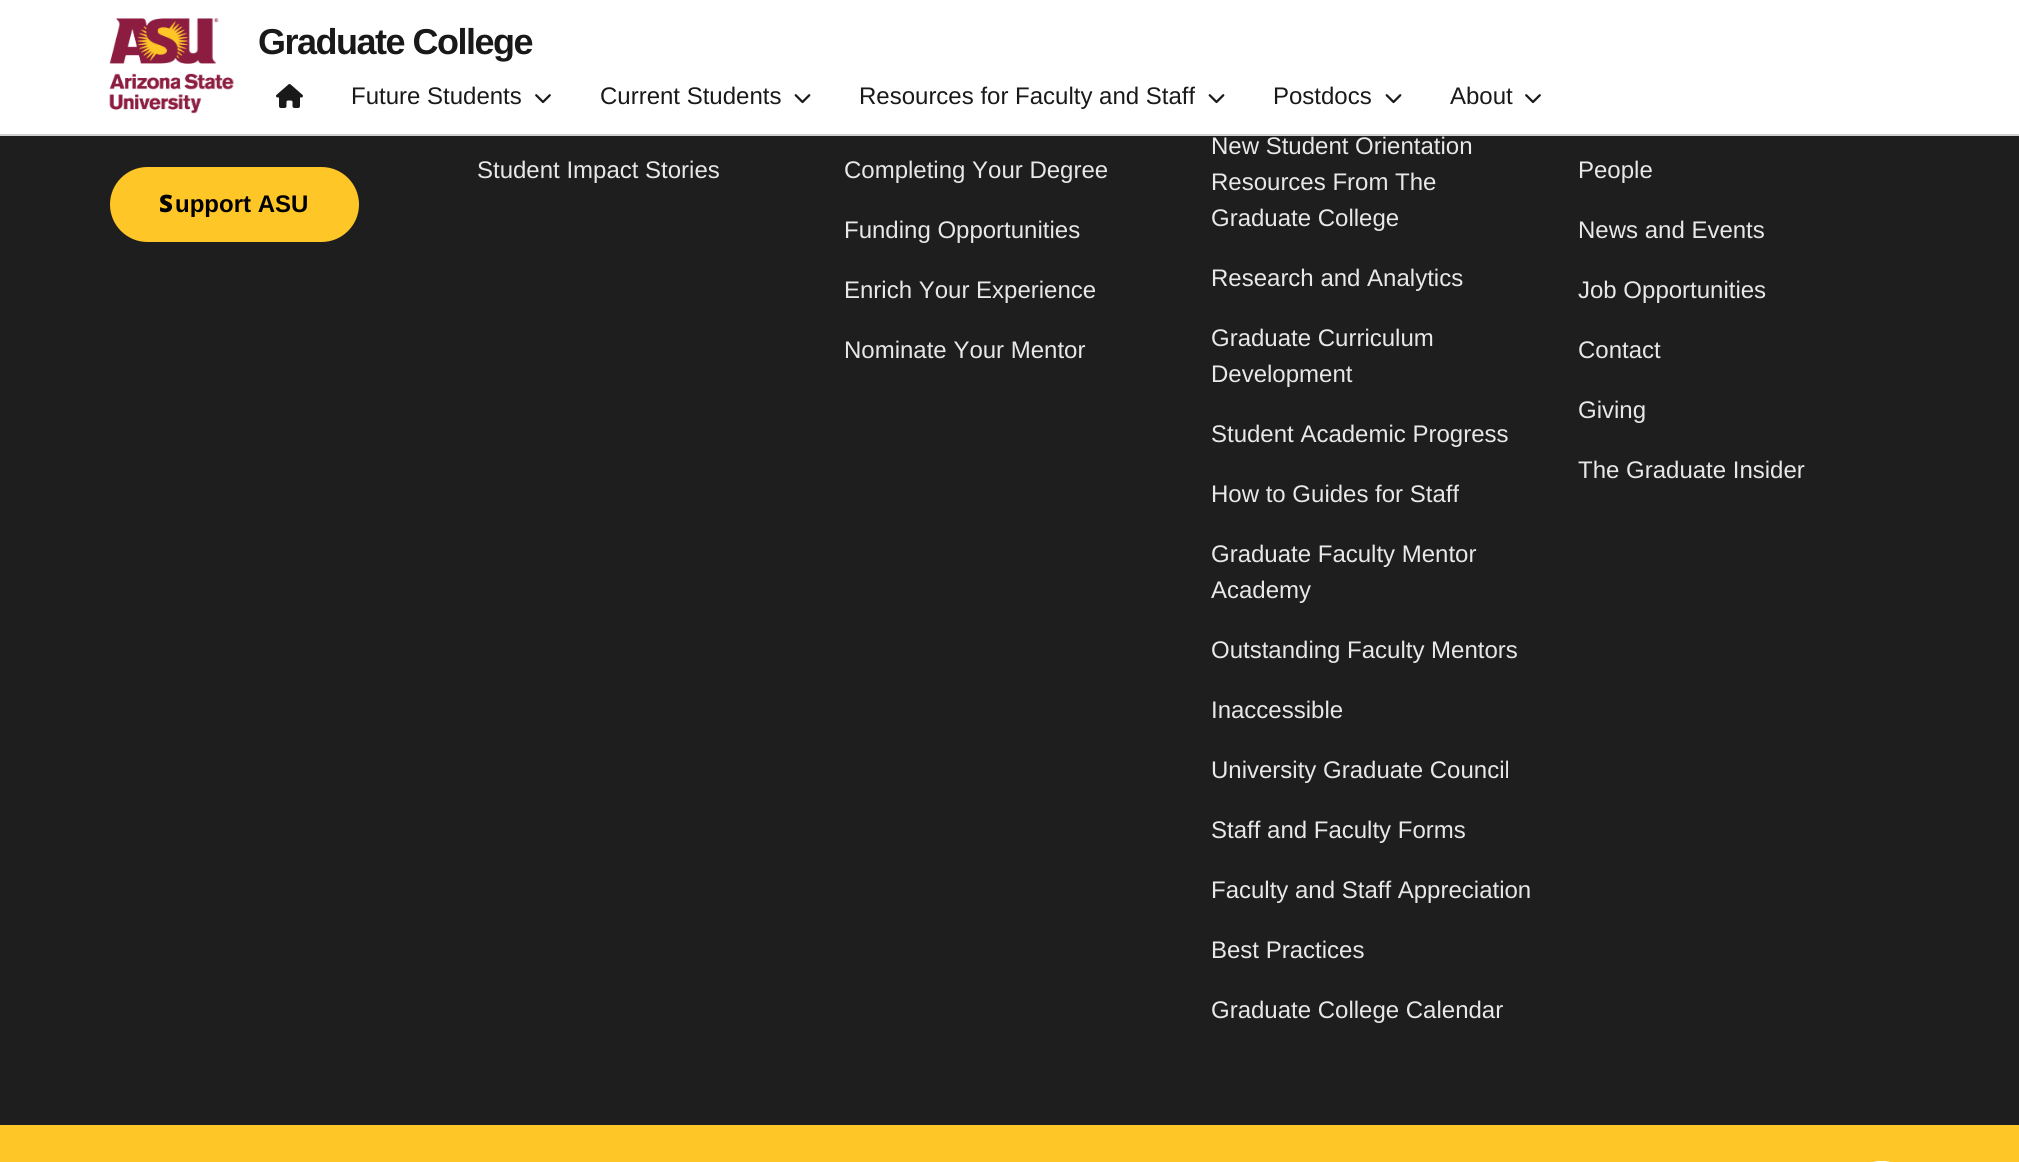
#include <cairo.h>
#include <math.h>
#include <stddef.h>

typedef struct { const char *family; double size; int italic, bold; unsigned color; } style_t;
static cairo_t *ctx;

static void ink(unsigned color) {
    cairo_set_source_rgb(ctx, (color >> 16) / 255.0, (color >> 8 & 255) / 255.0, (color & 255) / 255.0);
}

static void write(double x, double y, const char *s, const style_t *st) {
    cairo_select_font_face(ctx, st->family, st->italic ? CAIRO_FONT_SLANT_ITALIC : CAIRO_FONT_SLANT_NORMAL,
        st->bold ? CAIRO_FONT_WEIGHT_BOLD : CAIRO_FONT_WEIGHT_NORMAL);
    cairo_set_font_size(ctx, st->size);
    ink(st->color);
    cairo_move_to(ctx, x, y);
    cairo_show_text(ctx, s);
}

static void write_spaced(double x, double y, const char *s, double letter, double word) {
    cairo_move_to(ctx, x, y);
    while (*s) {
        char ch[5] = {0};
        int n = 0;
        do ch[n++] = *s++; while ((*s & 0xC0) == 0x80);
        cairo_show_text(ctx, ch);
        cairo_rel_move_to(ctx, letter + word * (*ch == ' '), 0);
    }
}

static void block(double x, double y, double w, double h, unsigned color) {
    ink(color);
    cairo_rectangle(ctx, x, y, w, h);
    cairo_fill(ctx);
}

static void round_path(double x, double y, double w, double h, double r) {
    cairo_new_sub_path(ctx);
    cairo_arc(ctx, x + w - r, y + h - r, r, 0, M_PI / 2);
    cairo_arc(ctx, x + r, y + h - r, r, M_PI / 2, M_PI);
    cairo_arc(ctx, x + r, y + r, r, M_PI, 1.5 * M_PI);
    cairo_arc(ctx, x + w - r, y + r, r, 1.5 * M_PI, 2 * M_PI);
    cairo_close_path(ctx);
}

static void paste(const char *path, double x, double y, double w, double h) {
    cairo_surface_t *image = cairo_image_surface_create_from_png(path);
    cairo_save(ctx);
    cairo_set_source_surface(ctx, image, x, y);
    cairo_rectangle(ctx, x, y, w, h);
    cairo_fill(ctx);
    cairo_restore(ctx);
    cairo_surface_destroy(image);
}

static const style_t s1 = {"Liberation Sans", 24, 0, 0, 0x191919};
static const style_t s2 = {"Noto Sans Black", 24, 0, 0, 0x000000};
static const style_t s3 = {"Liberation Sans", 24, 0, 1, 0x000000};
static const style_t s4 = {"Liberation Sans", 24, 0, 0, 0xe8e8e8};

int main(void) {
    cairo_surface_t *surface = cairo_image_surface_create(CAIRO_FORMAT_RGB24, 2019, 1162);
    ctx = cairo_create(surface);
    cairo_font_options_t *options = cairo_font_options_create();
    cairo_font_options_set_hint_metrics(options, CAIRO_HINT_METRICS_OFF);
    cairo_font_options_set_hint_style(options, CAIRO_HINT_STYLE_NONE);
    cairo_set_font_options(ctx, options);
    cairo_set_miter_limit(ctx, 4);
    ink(0x1e1e1e);
    cairo_paint(ctx);
    block(0, 0, 2019, 134, 0xffffff);
    block(0, 134, 2019, 2, 0xd0d0d0);
    paste("pic1.png", 109, 18, 125, 96);
    cairo_select_font_face(ctx, "Liberation Sans", CAIRO_FONT_SLANT_NORMAL, CAIRO_FONT_WEIGHT_BOLD);
    cairo_set_font_size(ctx, 36);
    ink(0x191919);
    write_spaced(258, 54, "Graduate College", -1.5, 0);
    paste("pic2.png", 276, 84, 27, 24);
    write(351, 104, "Future Students", &s1);
    paste("pic3.png", 535, 94, 16, 10);
    write(600, 104, "Current Students", &s1);
    paste("pic4.png", 794, 94, 17, 10);
    write(859, 104, "Resources for Faculty and Staff", &s1);
    paste("pic4.png", 1208, 94, 17, 10);
    write(1273, 104, "Postdocs", &s1);
    paste("pic4.png", 1385, 94, 17, 10);
    write(1450, 104, "About", &s1);
    paste("pic3.png", 1525, 94, 16, 10);
    ink(0xffc627);
    round_path(111, 168, 247, 73, 36.5);
    cairo_fill_preserve(ctx);
    cairo_stroke(ctx);
    write(159, 212, "S", &s2);
    write(175, 212, "upport ASU", &s3);
    write(477, 178, "Student Impact Stories", &s4);
    write(844, 178, "Completing Your Degree", &s4);
    write(844, 238, "Funding Opportunities", &s4);
    write(844, 298, "Enrich Your Experience", &s4);
    write(844, 358, "Nominate Your Mentor", &s4);
    write(1211, 154, "New Student Orientation", &s4);
    write(1211, 190, "Resources From The", &s4);
    write(1211, 226, "Graduate College", &s4);
    write(1211, 286, "Research and Analytics", &s4);
    write(1211, 346, "Graduate Curriculum", &s4);
    write(1211, 382, "Development", &s4);
    write(1211, 442, "Student Academic Progress", &s4);
    write(1211, 502, "How to Guides for Staff", &s4);
    write(1211, 562, "Graduate Faculty Mentor", &s4);
    write(1211, 598, "Academy", &s4);
    write(1211, 658, "Outstanding Faculty Mentors", &s4);
    write(1211, 718, "Inaccessible", &s4);
    write(1211, 778, "University Graduate Council", &s4);
    write(1211, 838, "Staff and Faculty Forms", &s4);
    write(1211, 898, "Faculty and Staff Appreciation", &s4);
    write(1211, 958, "Best Practices", &s4);
    write(1211, 1018, "Graduate College Calendar", &s4);
    write(1578, 178, "People", &s4);
    write(1578, 238, "News and Events", &s4);
    write(1578, 298, "Job Opportunities", &s4);
    write(1578, 358, "Contact", &s4);
    write(1578, 418, "Giving", &s4);
    write(1578, 478, "The Graduate Insider", &s4);
    block(0, 1125, 2019, 37, 0xffc627);
    paste("pic5.png", 1871, 1161, 21, 1);
    cairo_surface_write_to_png(surface, "screenshot.png");
    cairo_font_options_destroy(options);
    cairo_destroy(ctx);
    cairo_surface_destroy(surface);
    return 0;
}
